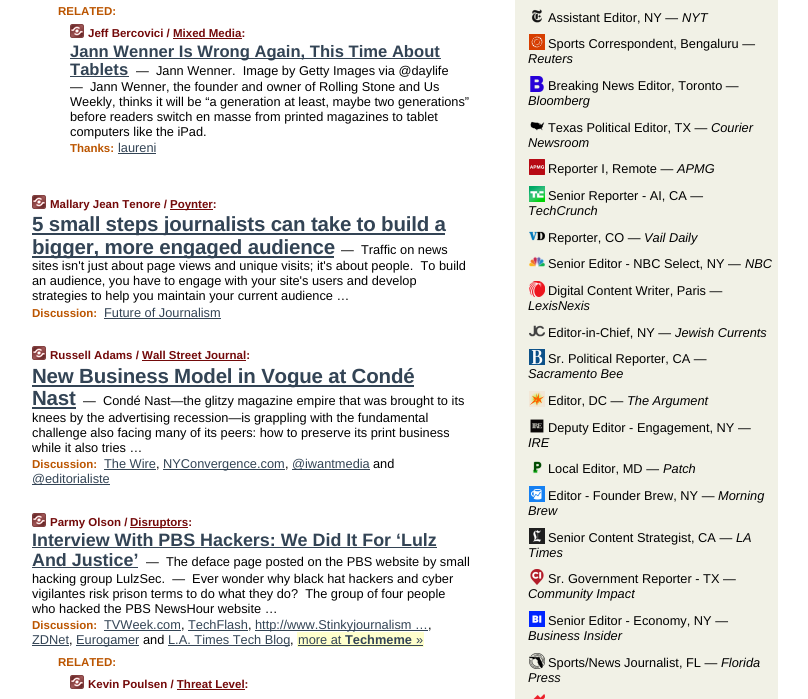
#include <cairo.h>
#include <math.h>
#include <stddef.h>

typedef struct { const char *family; double size; int italic, bold; unsigned color; } style_t;
static cairo_t *ctx;

static void ink(unsigned color) {
    cairo_set_source_rgb(ctx, (color >> 16) / 255.0, (color >> 8 & 255) / 255.0, (color & 255) / 255.0);
}

static void write(double x, double y, const char *s, const style_t *st) {
    cairo_select_font_face(ctx, st->family, st->italic ? CAIRO_FONT_SLANT_ITALIC : CAIRO_FONT_SLANT_NORMAL,
        st->bold ? CAIRO_FONT_WEIGHT_BOLD : CAIRO_FONT_WEIGHT_NORMAL);
    cairo_set_font_size(ctx, st->size);
    ink(st->color);
    cairo_move_to(ctx, x, y);
    cairo_show_text(ctx, s);
}

static void write_spaced(double x, double y, const char *s, double letter, double word) {
    cairo_move_to(ctx, x, y);
    while (*s) {
        char ch[5] = {0};
        int n = 0;
        do ch[n++] = *s++; while ((*s & 0xC0) == 0x80);
        cairo_show_text(ctx, ch);
        cairo_rel_move_to(ctx, letter + word * (*ch == ' '), 0);
    }
}

static void block(double x, double y, double w, double h, unsigned color) {
    ink(color);
    cairo_rectangle(ctx, x, y, w, h);
    cairo_fill(ctx);
}

static void paste(const char *path, double x, double y, double w, double h) {
    cairo_surface_t *image = cairo_image_surface_create_from_png(path);
    cairo_save(ctx);
    cairo_set_source_surface(ctx, image, x, y);
    cairo_rectangle(ctx, x, y, w, h);
    cairo_fill(ctx);
    cairo_restore(ctx);
    cairo_surface_destroy(image);
}

static const style_t s1 = {"Liberation Sans", 11.5, 0, 1, 0xbb5500};
static const style_t s2 = {"Liberation Sans", 11.5, 0, 1, 0x730a0a};
static const style_t s3 = {"Liberation Sans", 16.6, 0, 1, 0x334455};
static const style_t s4 = {"Liberation Sans", 12.8, 0, 0, 0x000000};
static const style_t s5 = {"Liberation Sans", 12.8, 0, 0, 0x334455};
static const style_t s6 = {"Liberation Sans", 17.9, 0, 1, 0x334455};
static const style_t s7 = {"Liberation Sans", 12.8, 0, 1, 0x334455};
static const style_t s8 = {"Liberation Sans", 12.8, 1, 0, 0x000000};

int main(void) {
    cairo_surface_t *surface = cairo_image_surface_create(CAIRO_FORMAT_RGB24, 808, 699);
    ctx = cairo_create(surface);
    cairo_font_options_t *options = cairo_font_options_create();
    cairo_font_options_set_hint_metrics(options, CAIRO_HINT_METRICS_OFF);
    cairo_font_options_set_hint_style(options, CAIRO_HINT_STYLE_NONE);
    cairo_set_font_options(ctx, options);
    cairo_set_miter_limit(ctx, 4);
    ink(0xffffff);
    cairo_paint(ctx);
    write(58, 15, "RELATED:", &s1);
    paste("pic1.png", 70, 24, 14, 14);
    write(88, 37, "Jeff Bercovici / Mixed Media:", &s2);
    block(173, 38, 69, 1, 0x730a0a);
    block(70, 58, 371, 1, 0x334455);
    write(70, 57, "Jann Wenner Is Wrong Again, This Time About", &s3);
    write(70, 75, "Tablets", &s3);
    block(70, 76, 59, 1, 0x334455);
    write(136, 75, "—  Jann Wenner.  Image by Getty Images via @daylife", &s4);
    write(70, 91, "—  Jann Wenner, the founder and owner of Rolling Stone and Us", &s4);
    write(70, 106, "Weekly, thinks it will be “a generation at least, maybe two generations”", &s4);
    write(70, 121, "before readers switch en masse from printed magazines to tablet", &s4);
    write(70, 136, "computers like the iPad.", &s4);
    write(70, 152, "Thanks:", &s1);
    write(118, 152, "laureni", &s5);
    block(118, 153, 38, 1, 0x334455);
    paste("pic1.png", 32, 195, 14, 14);
    write(50, 208, "Mallary Jean Tenore /", &s2);
    block(170, 209, 43, 1, 0x730a0a);
    write(170, 208, "Poynter:", &s2);
    block(32, 233, 413, 2, 0x334455);
    cairo_set_font_size(ctx, 20.5);
    write_spaced(32, 231, "5 small steps journalists can take to build a", -0.2, 0);
    block(32, 256, 302, 2, 0x334455);
    write_spaced(32, 254, "bigger, more engaged audience", -0.2, 0);
    write(341, 254, "—  Traffic on news", &s4);
    write(32, 270, "sites isn't just about page views and unique visits; it's about people.  To build", &s4);
    write(32, 285, "an audience, you have to engage with your site's users and develop", &s4);
    write(32, 300, "strategies to help you maintain your current audience …", &s4);
    write(32, 317, "Discussion:", &s1);
    write(104, 317, "Future of Journalism", &s5);
    block(104, 318, 117, 1, 0x334455);
    paste("pic1.png", 32, 346, 14, 14);
    write(50, 359, "Russell Adams / Wall Street Journal:", &s2);
    block(142, 360, 104, 1, 0x730a0a);
    block(32, 385, 382, 2, 0x334455);
    cairo_set_font_size(ctx, 20.5);
    write_spaced(32, 383, "New Business Model in Vogue at Condé", -0.2, 0);
    write_spaced(32, 405, "Nast", -0.2, 0);
    block(32, 407, 44, 2, 0x334455);
    write(83, 405, "—  Condé Nast—the glitzy magazine empire that was brought to its", &s4);
    write(32, 422, "knees by the advertising recession—is grappling with the fundamental", &s4);
    write(32, 437, "challenge also facing many of its peers: how to preserve its print business", &s4);
    write(32, 452, "while it also tries …", &s4);
    write(32, 468, "Discussion:", &s1);
    write(104, 468, "The Wire", &s5);
    write(156, 468, ",", &s4);
    block(104, 469, 52, 1, 0x334455);
    block(163, 469, 122, 1, 0x334455);
    write(163, 468, "NYConvergence.com", &s5);
    write(285, 468, ",", &s4);
    block(292, 469, 78, 1, 0x334455);
    write(292, 468, "@iwantmedia", &s5);
    write(373, 468, "and", &s4);
    block(32, 484, 78, 1, 0x334455);
    write(32, 483, "@editorialiste", &s5);
    paste("pic1.png", 32, 513, 14, 14);
    write(50, 526, "Parmy Olson /", &s2);
    block(130, 527, 58, 1, 0x730a0a);
    write(130, 526, "Disruptors:", &s2);
    write(32, 546, "Interview With PBS Hackers: We Did It For ‘Lulz", &s6);
    block(32, 547, 405, 1, 0x334455);
    write(32, 566, "And Justice’", &s6);
    block(32, 567, 106, 1, 0x334455);
    write(146, 566, "—  The deface page posted on the PBS website by small", &s4);
    write(32, 583, "hacking group LulzSec.  —  Ever wonder why black hat hackers and cyber", &s4);
    write(32, 598, "vigilantes risk prison terms to do what they do?  The group of four people", &s4);
    write(32, 613, "who hacked the PBS NewsHour website …", &s4);
    write(32, 629, "Discussion:", &s1);
    write(104, 629, "TVWeek.com", &s5);
    write(181, 629, ",", &s4);
    block(104, 630, 77, 1, 0x334455);
    write(188, 629, "TechFlash", &s5);
    write(248, 629, ",", &s4);
    block(188, 630, 60, 1, 0x334455);
    block(255, 630, 173, 1, 0x334455);
    write(255, 629, "http://www.Stinkyjournalism …", &s5);
    write(428, 629, ",", &s4);
    write(32, 644, "ZDNet", &s5);
    write(69, 644, ",", &s4);
    block(32, 645, 37, 1, 0x334455);
    block(76, 645, 63, 1, 0x334455);
    write(76, 644, "Eurogamer", &s5);
    write(143, 644, "and", &s4);
    block(168, 645, 122, 1, 0x334455);
    write(168, 644, "L.A. Times Tech Blog", &s5);
    write(290, 644, ",", &s4);
    block(297, 632, 127, 15, 0xffffcc);
    block(298, 645, 125, 1, 0x334455);
    write(298, 644, "more at", &s5);
    write(345, 644, "Techmeme", &s7);
    write(416, 644, "»", &s5);
    write(58, 666, "RELATED:", &s1);
    paste("pic1.png", 70, 675, 14, 14);
    write(88, 688, "Kevin Poulsen / Threat Level:", &s2);
    block(177, 689, 68, 1, 0x730a0a);
    block(515, 0, 263, 699, 0xf1f1e6);
    paste("pic2.png", 531, 9, 11, 14);
    write(548, 22, "Assistant Editor, NY —", &s4);
    write(682, 22, "NYT", &s8);
    paste("pic3.png", 529, 34, 16, 16);
    write(548, 48, "Sports Correspondent, Bengaluru —", &s4);
    write(528, 63, "Reuters", &s8);
    paste("pic4.png", 530, 76, 14, 16);
    write(548, 90, "Breaking News Editor, Toronto —", &s4);
    write(528, 105, "Bloomberg", &s8);
    paste("pic5.png", 530, 121, 15, 10);
    write(548, 132, "Texas Political Editor, TX —", &s4);
    write(711, 132, "Courier", &s8);
    write(528, 147, "Newsroom", &s8);
    paste("pic6.png", 529, 159, 16, 16);
    write(548, 173, "Reporter I, Remote —", &s4);
    write(677, 173, "APMG", &s8);
    paste("pic7.png", 529, 186, 16, 16);
    write(548, 200, "Senior Reporter - AI, CA —", &s4);
    write(528, 215, "TechCrunch", &s8);
    paste("pic8.png", 529, 231, 16, 10);
    write(548, 242, "Reporter, CO —", &s4);
    write(644, 242, "Vail Daily", &s8);
    paste("pic9.png", 529, 256, 16, 11);
    write(548, 268, "Senior Editor - NBC Select, NY —", &s4);
    write(745, 268, "NBC", &s8);
    paste("pic10.png", 529, 281, 16, 16);
    write(548, 295, "Digital Content Writer, Paris —", &s4);
    write(528, 310, "LexisNexis", &s8);
    paste("pic11.png", 529, 325, 16, 12);
    write(548, 337, "Editor-in-Chief, NY —", &s4);
    write(675, 337, "Jewish Currents", &s8);
    paste("pic12.png", 529, 349, 16, 16);
    write(548, 363, "Sr. Political Reporter, CA —", &s4);
    write(528, 378, "Sacramento Bee", &s8);
    paste("pic13.png", 529, 391, 16, 16);
    write(548, 405, "Editor, DC —", &s4);
    write(627, 405, "The Argument", &s8);
    paste("pic14.png", 530, 419, 14, 14);
    write(548, 432, "Deputy Editor - Engagement, NY —", &s4);
    write(528, 447, "IRE", &s8);
    paste("pic15.png", 532, 461, 10, 13);
    write(548, 473, "Local Editor, MD —", &s4);
    write(663, 473, "Patch", &s8);
    paste("pic16.png", 529, 486, 16, 16);
    write(548, 500, "Editor - Founder Brew, NY —", &s4);
    write(718, 500, "Morning", &s8);
    write(528, 515, "Brew", &s8);
    paste("pic17.png", 529, 528, 16, 16);
    write(548, 542, "Senior Content Strategist, CA —", &s4);
    write(736, 542, "LA", &s8);
    write(528, 557, "Times", &s8);
    paste("pic18.png", 530, 569, 14, 16);
    write(548, 583, "Sr. Government Reporter - TX —", &s4);
    write(528, 598, "Community Impact", &s8);
    paste("pic19.png", 529, 611, 16, 16);
    write(548, 625, "Senior Editor - Economy, NY —", &s4);
    write(528, 640, "Business Insider", &s8);
    paste("pic20.png", 529, 653, 16, 16);
    write(548, 667, "Sports/News Journalist, FL —", &s4);
    write(721, 667, "Florida", &s8);
    write(528, 682, "Press", &s8);
    paste("pic21.png", 533, 694, 12, 5);
    cairo_surface_write_to_png(surface, "screenshot.png");
    cairo_font_options_destroy(options);
    cairo_destroy(ctx);
    cairo_surface_destroy(surface);
    return 0;
}
